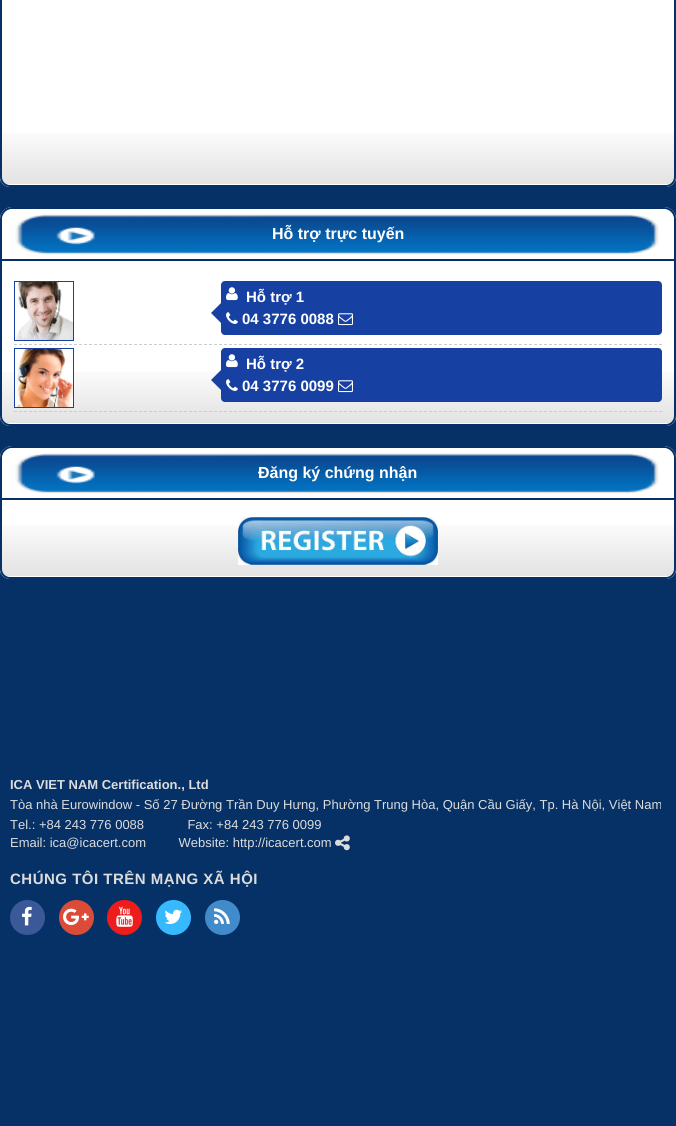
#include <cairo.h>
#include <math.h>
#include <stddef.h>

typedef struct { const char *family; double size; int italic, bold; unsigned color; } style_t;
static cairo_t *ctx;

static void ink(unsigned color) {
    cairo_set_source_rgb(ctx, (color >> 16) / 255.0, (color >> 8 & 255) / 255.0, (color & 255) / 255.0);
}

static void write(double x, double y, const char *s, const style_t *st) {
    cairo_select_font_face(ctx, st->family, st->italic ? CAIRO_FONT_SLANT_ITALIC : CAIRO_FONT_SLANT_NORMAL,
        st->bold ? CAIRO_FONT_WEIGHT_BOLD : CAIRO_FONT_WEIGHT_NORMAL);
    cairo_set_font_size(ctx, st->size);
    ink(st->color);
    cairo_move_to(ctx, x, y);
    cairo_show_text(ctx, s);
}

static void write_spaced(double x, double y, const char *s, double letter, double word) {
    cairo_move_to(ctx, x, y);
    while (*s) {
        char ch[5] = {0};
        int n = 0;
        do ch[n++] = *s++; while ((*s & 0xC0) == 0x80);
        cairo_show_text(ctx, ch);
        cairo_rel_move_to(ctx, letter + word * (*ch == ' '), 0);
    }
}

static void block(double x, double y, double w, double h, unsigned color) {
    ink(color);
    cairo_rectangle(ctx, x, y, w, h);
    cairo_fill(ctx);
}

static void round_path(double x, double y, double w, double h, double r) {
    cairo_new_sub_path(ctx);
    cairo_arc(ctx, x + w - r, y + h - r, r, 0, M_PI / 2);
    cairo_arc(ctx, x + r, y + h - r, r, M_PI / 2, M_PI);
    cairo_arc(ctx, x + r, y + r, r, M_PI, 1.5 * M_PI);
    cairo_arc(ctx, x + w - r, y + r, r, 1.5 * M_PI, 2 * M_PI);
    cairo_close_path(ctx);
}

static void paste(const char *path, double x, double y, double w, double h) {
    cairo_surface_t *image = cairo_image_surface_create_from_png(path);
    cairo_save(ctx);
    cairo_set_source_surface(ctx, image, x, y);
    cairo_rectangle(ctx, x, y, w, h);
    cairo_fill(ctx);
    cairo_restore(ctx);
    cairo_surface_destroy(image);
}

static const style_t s1 = {"Liberation Sans", 16, 0, 1, 0xffffff};
static const style_t s2 = {"Liberation Sans", 15, 0, 1, 0xffffff};
static const style_t s3 = {"Liberation Sans", 13, 0, 1, 0xdcdcdc};
static const style_t s4 = {"Liberation Sans", 13, 0, 0, 0xdcdcdc};

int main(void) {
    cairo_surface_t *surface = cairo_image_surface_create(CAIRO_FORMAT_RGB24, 676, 1126);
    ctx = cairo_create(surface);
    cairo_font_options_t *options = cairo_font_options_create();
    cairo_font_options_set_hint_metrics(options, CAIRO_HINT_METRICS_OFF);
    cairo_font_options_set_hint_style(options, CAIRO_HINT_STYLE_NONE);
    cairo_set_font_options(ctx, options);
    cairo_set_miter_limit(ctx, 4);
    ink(0x063166);
    cairo_paint(ctx);
    ink(0xffffff);
    cairo_new_path(ctx);
    cairo_move_to(ctx, 12, -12);
    cairo_line_to(ctx, 664, -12);
    cairo_curve_to(ctx, 670.5, -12, 676, -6.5, 676, 0);
    cairo_line_to(ctx, 676, 177);
    cairo_curve_to(ctx, 676, 182.5, 671.5, 187, 666, 187);
    cairo_line_to(ctx, 10, 187);
    cairo_curve_to(ctx, 4.5, 187, 0, 182.5, 0, 177);
    cairo_line_to(ctx, 0, 0);
    cairo_curve_to(ctx, 0, -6.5, 5.5, -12, 12, -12);
    cairo_close_path(ctx);
    cairo_fill(ctx);
    paste("pic1.png", 0, 133, 676, 52);
    cairo_new_path(ctx);
    cairo_move_to(ctx, 12, -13);
    cairo_line_to(ctx, 664, -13);
    cairo_curve_to(ctx, 670, -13, 675, -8, 675, -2);
    cairo_line_to(ctx, 675, 177);
    cairo_curve_to(ctx, 675, 182, 671, 186, 666, 186);
    cairo_line_to(ctx, 10, 186);
    cairo_curve_to(ctx, 5, 186, 1, 182, 1, 177);
    cairo_line_to(ctx, 1, -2);
    cairo_curve_to(ctx, 1, -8, 6, -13, 12, -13);
    cairo_close_path(ctx);
    ink(0x063166);
    cairo_stroke(ctx);
    ink(0xffffff);
    cairo_new_path(ctx);
    cairo_move_to(ctx, 12, 207);
    cairo_line_to(ctx, 664, 207);
    cairo_curve_to(ctx, 670.5, 207, 676, 212.5, 676, 219);
    cairo_line_to(ctx, 676, 416);
    cairo_curve_to(ctx, 676, 421.5, 671.5, 426, 666, 426);
    cairo_line_to(ctx, 10, 426);
    cairo_curve_to(ctx, 4.5, 426, 0, 421.5, 0, 416);
    cairo_line_to(ctx, 0, 219);
    cairo_curve_to(ctx, 0, 212.5, 5.5, 207, 12, 207);
    cairo_close_path(ctx);
    cairo_fill(ctx);
    paste("pic1.png", 0, 372, 676, 52);
    cairo_new_path(ctx);
    cairo_move_to(ctx, 12, 208);
    cairo_line_to(ctx, 664, 208);
    cairo_curve_to(ctx, 670, 208, 675, 213, 675, 219);
    cairo_line_to(ctx, 675, 416);
    cairo_curve_to(ctx, 675, 421, 671, 425, 666, 425);
    cairo_line_to(ctx, 10, 425);
    cairo_curve_to(ctx, 5, 425, 1, 421, 1, 416);
    cairo_line_to(ctx, 1, 219);
    cairo_curve_to(ctx, 1, 213, 6, 208, 12, 208);
    cairo_close_path(ctx);
    ink(0x063166);
    cairo_stroke(ctx);
    ink(0xffffff);
    cairo_new_path(ctx);
    cairo_move_to(ctx, 14, 209);
    cairo_line_to(ctx, 662, 209);
    cairo_curve_to(ctx, 668.5, 209, 674, 214.5, 674, 221);
    cairo_line_to(ctx, 674, 261);
    cairo_line_to(ctx, 2, 261);
    cairo_line_to(ctx, 2, 221);
    cairo_curve_to(ctx, 2, 214.5, 7.5, 209, 14, 209);
    cairo_close_path(ctx);
    cairo_fill(ctx);
    paste("pic2.png", 2, 209, 672, 46);
    block(2, 259, 672, 2, 0x063166);
    write(272, 239, "Hỗ trợ trực tuyến", &s1);
    cairo_new_path(ctx);
    cairo_move_to(ctx, 14, 344.5);
    cairo_line_to(ctx, 662, 344.5);
    ink(0xcccccc);
    cairo_set_line_width(ctx, 1);
    cairo_set_dash(ctx, (double[]){3, 2}, 2, 0);
    cairo_stroke(ctx);
    cairo_rectangle(ctx, 14.5, 281.5, 59, 59);
    ink(0x1740a3);
    cairo_set_dash(ctx, NULL, 0, 0);
    cairo_stroke(ctx);
    paste("pic3.png", 16, 282, 57, 58);
    round_path(221, 281, 441, 54, 4);
    cairo_fill(ctx);
    cairo_new_path(ctx);
    cairo_move_to(ctx, 221, 303);
    cairo_line_to(ctx, 221, 323);
    cairo_line_to(ctx, 211, 313);
    cairo_close_path(ctx);
    cairo_fill(ctx);
    paste("pic4.png", 226, 287, 12, 14);
    write(246, 302, "Hỗ trợ 1", &s2);
    paste("pic5.png", 226, 312, 12, 12);
    write(242, 324, "04 3776 0088", &s2);
    paste("pic6.png", 338, 313, 15, 13);
    cairo_new_path(ctx);
    cairo_move_to(ctx, 14, 411.5);
    cairo_line_to(ctx, 662, 411.5);
    ink(0xcccccc);
    cairo_set_dash(ctx, (double[]){3, 2}, 2, 0);
    cairo_stroke(ctx);
    cairo_rectangle(ctx, 14.5, 348.5, 59, 59);
    ink(0x1740a3);
    cairo_set_dash(ctx, NULL, 0, 0);
    cairo_stroke(ctx);
    paste("pic7.png", 15, 349, 58, 58);
    round_path(221, 348, 441, 54, 4);
    cairo_fill(ctx);
    cairo_new_path(ctx);
    cairo_move_to(ctx, 221, 370);
    cairo_line_to(ctx, 221, 390);
    cairo_line_to(ctx, 211, 380);
    cairo_close_path(ctx);
    cairo_fill(ctx);
    paste("pic4.png", 226, 354, 12, 14);
    write(246, 369, "Hỗ trợ 2", &s2);
    paste("pic5.png", 226, 379, 12, 12);
    write(242, 391, "04 3776 0099", &s2);
    paste("pic6.png", 338, 380, 15, 13);
    cairo_new_path(ctx);
    cairo_move_to(ctx, 12, 446);
    cairo_line_to(ctx, 664, 446);
    cairo_curve_to(ctx, 670.5, 446, 676, 451.5, 676, 458);
    cairo_line_to(ctx, 676, 569);
    cairo_curve_to(ctx, 676, 574.5, 671.5, 579, 666, 579);
    cairo_line_to(ctx, 10, 579);
    cairo_curve_to(ctx, 4.5, 579, 0, 574.5, 0, 569);
    cairo_line_to(ctx, 0, 458);
    cairo_curve_to(ctx, 0, 451.5, 5.5, 446, 12, 446);
    cairo_close_path(ctx);
    cairo_fill(ctx);
    paste("pic1.png", 0, 525, 676, 52);
    cairo_new_path(ctx);
    cairo_move_to(ctx, 12, 447);
    cairo_line_to(ctx, 664, 447);
    cairo_curve_to(ctx, 670, 447, 675, 452, 675, 458);
    cairo_line_to(ctx, 675, 569);
    cairo_curve_to(ctx, 675, 574, 671, 578, 666, 578);
    cairo_line_to(ctx, 10, 578);
    cairo_curve_to(ctx, 5, 578, 1, 574, 1, 569);
    cairo_line_to(ctx, 1, 458);
    cairo_curve_to(ctx, 1, 452, 6, 447, 12, 447);
    cairo_close_path(ctx);
    ink(0x063166);
    cairo_set_line_width(ctx, 2);
    cairo_stroke(ctx);
    ink(0xffffff);
    cairo_new_path(ctx);
    cairo_move_to(ctx, 14, 448);
    cairo_line_to(ctx, 662, 448);
    cairo_curve_to(ctx, 668.5, 448, 674, 453.5, 674, 460);
    cairo_line_to(ctx, 674, 500);
    cairo_line_to(ctx, 2, 500);
    cairo_line_to(ctx, 2, 460);
    cairo_curve_to(ctx, 2, 453.5, 7.5, 448, 14, 448);
    cairo_close_path(ctx);
    cairo_fill(ctx);
    paste("pic2.png", 2, 448, 672, 46);
    block(2, 498, 672, 2, 0x063166);
    write(258, 478, "Đăng ký chứng nhận", &s1);
    paste("pic8.png", 238, 517, 200, 48);
    write(10, 789, "ICA VIET NAM Certification., Ltd", &s3);
    write(10, 809, "Tòa nhà Eurowindow - Số 27 Đường Trần Duy Hưng, Phường Trung Hòa, Quận Cầu Giấy, Tp. Hà Nội, Việt Nam", &s4);
    write(10, 829, "Tel.: +84 243 776 0088            Fax: +84 243 776 0099", &s4);
    write(10, 847, "Email: ica@icacert.com         Website: http://icacert.com", &s4);
    paste("pic9.png", 335, 835, 15, 16);
    cairo_select_font_face(ctx, "Liberation Sans", CAIRO_FONT_SLANT_NORMAL, CAIRO_FONT_WEIGHT_BOLD);
    cairo_set_font_size(ctx, 15);
    write_spaced(10, 884, "CHÚNG TÔI TRÊN MẠNG XÃ HỘI", 0.5, 0);
    ink(0x3b5998);
    cairo_new_path(ctx);
    cairo_arc(ctx, 27.5, 917.5, 17.5, 0, 2 * M_PI);
    cairo_fill(ctx);
    paste("pic10.png", 22, 906, 10, 20);
    ink(0xdc4a38);
    cairo_arc(ctx, 76.5, 917.5, 17.5, 0, 2 * M_PI);
    cairo_fill(ctx);
    paste("pic11.png", 63, 908, 26, 17);
    ink(0xee1c1b);
    cairo_arc(ctx, 124.5, 917.5, 17.5, 0, 2 * M_PI);
    cairo_fill(ctx);
    paste("pic12.png", 116, 906, 17, 21);
    ink(0x36b9ff);
    cairo_arc(ctx, 173.5, 917.5, 17.5, 0, 2 * M_PI);
    cairo_fill(ctx);
    paste("pic13.png", 164, 909, 18, 15);
    ink(0x428bca);
    cairo_arc(ctx, 222.5, 917.5, 17.5, 0, 2 * M_PI);
    cairo_fill(ctx);
    paste("pic14.png", 214, 908, 16, 16);
    cairo_surface_write_to_png(surface, "screenshot.png");
    cairo_font_options_destroy(options);
    cairo_destroy(ctx);
    cairo_surface_destroy(surface);
    return 0;
}
